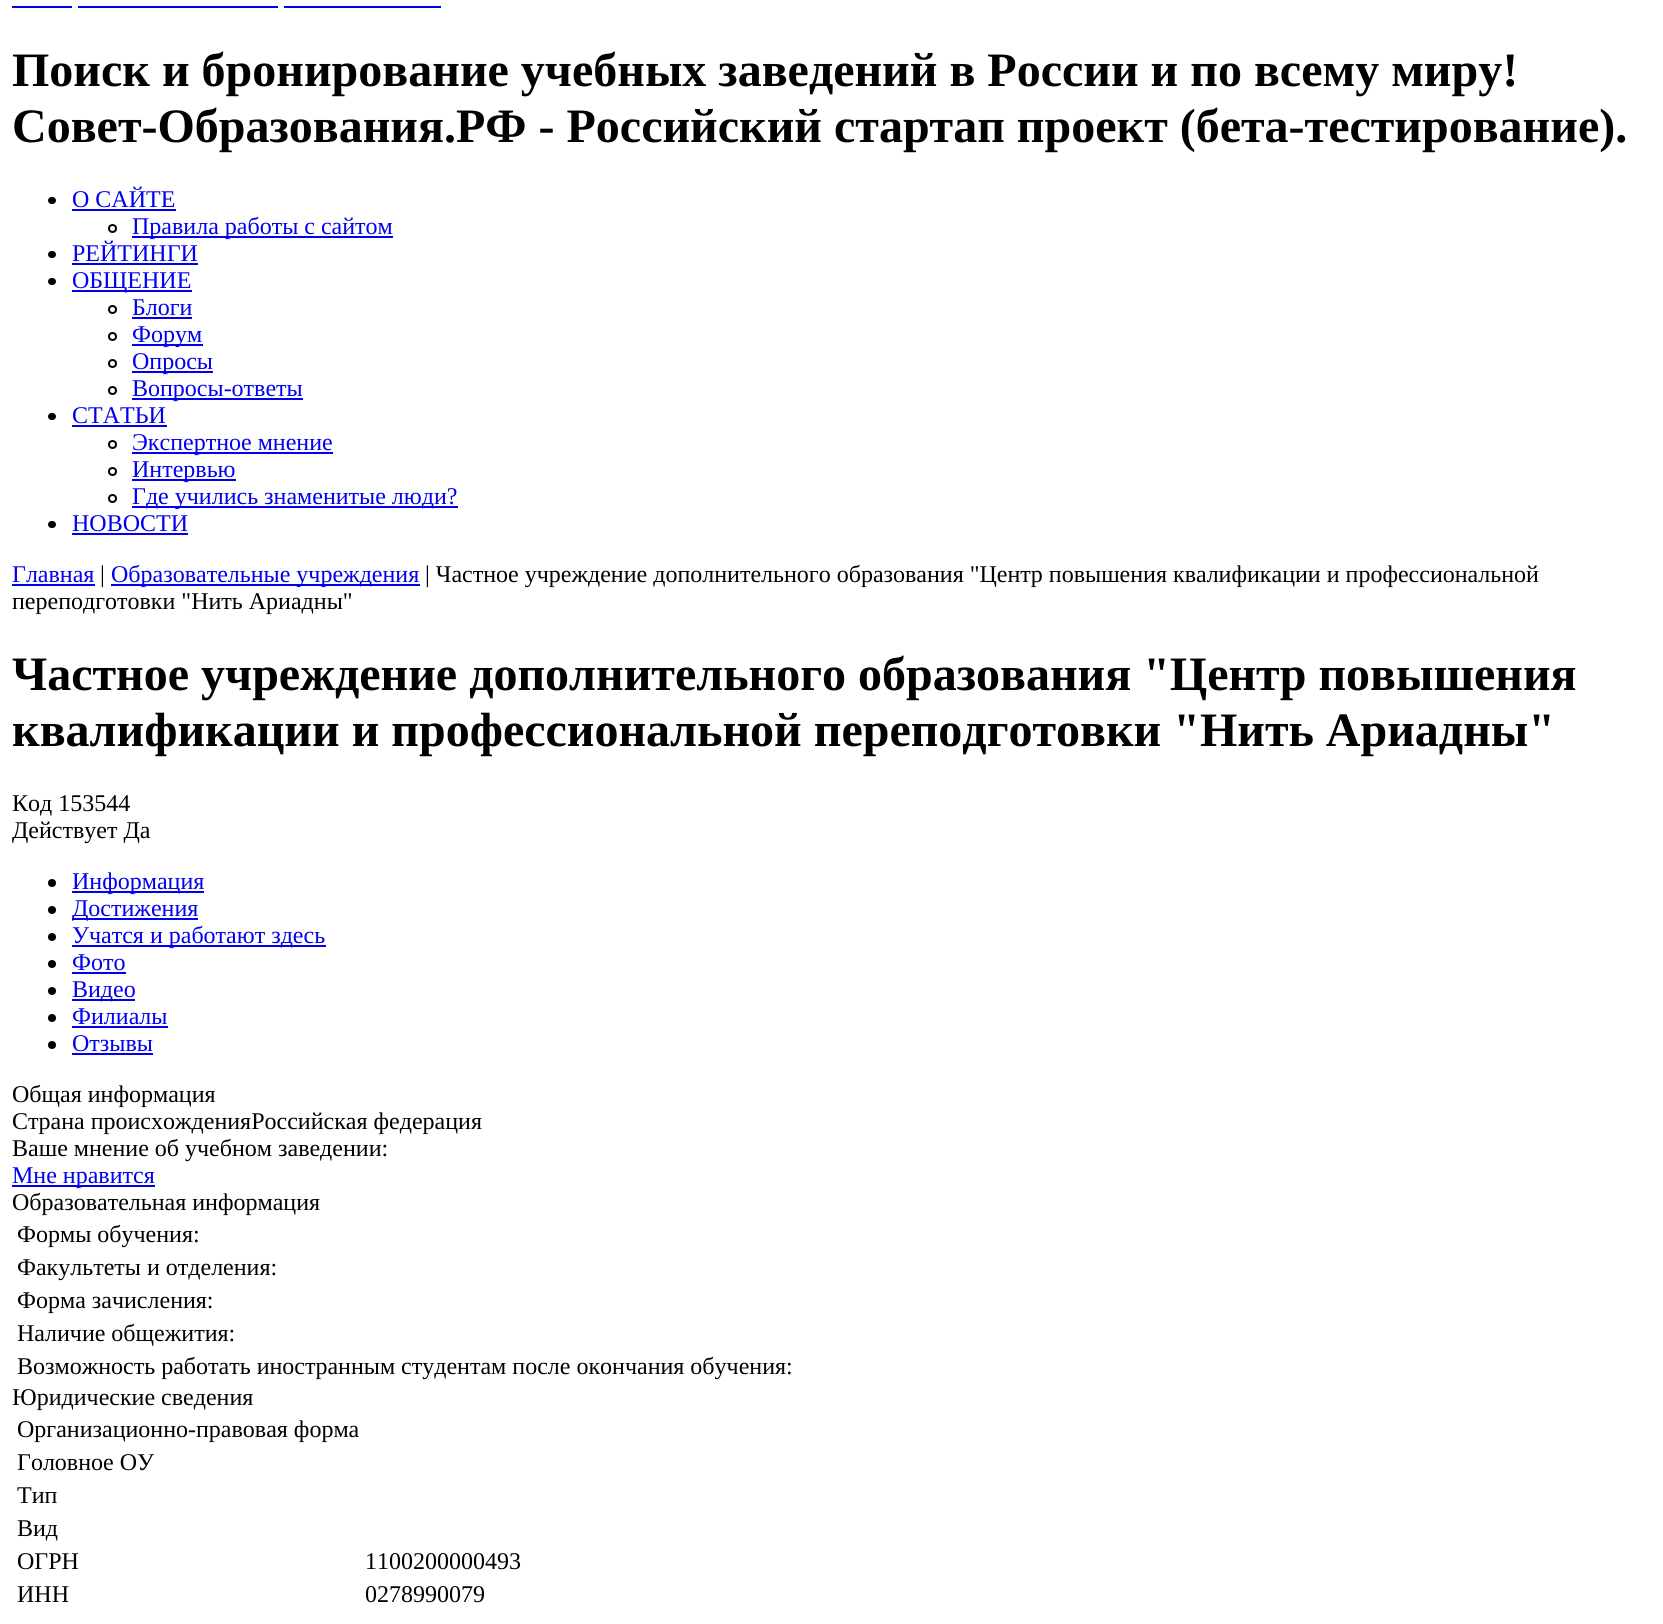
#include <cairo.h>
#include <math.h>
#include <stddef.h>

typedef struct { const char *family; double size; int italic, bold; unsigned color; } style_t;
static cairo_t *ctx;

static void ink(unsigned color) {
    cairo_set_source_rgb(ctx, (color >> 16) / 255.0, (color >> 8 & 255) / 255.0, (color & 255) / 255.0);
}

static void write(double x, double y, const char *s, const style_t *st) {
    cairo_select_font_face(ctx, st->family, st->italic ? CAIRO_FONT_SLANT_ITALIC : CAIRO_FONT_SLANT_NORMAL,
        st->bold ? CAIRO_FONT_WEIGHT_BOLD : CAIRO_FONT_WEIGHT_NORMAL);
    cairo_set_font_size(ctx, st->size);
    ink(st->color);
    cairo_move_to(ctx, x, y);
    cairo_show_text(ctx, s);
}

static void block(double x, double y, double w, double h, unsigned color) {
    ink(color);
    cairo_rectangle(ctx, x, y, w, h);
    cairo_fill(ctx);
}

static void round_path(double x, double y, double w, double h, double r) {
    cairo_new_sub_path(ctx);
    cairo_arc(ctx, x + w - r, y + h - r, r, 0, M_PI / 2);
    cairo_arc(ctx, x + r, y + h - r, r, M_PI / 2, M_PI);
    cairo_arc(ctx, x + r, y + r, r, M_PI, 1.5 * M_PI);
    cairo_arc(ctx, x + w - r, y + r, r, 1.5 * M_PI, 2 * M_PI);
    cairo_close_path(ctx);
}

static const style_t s1 = {"Liberation Serif", 48, 0, 1, 0x000000};
static const style_t s2 = {"Liberation Serif", 24, 0, 0, 0x0000ee};
static const style_t s3 = {"Liberation Serif", 24, 0, 0, 0x000000};

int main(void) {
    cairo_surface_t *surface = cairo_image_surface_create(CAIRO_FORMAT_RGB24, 1663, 1624);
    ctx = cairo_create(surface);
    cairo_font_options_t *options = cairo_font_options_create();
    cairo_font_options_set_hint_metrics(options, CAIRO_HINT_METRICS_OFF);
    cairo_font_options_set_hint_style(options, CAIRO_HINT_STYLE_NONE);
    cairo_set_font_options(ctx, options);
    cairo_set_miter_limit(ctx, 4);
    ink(0xffffff);
    cairo_paint(ctx);
    block(12, 6, 60, 2, 0x0000ee);
    block(78, 6, 200, 2, 0x0000ee);
    block(284, 6, 157, 2, 0x0000ee);
    write(12, 86, "Поиск и бронирование учебных заведений в России и по всему миру!", &s1);
    write(12, 142, "Совет-Образования.РФ - Российский стартап проект (бета-тестирование).", &s1);
    round_path(48, 197, 8, 7, 3.5);
    cairo_fill(ctx);
    write(72, 207, "О САЙТЕ", &s2);
    block(72, 209, 104, 2, 0x0000ee);
    cairo_new_path(ctx);
    cairo_arc(ctx, 112.5, 228.5, 3.5, 0, 2 * M_PI);
    ink(0x000000);
    cairo_stroke(ctx);
    block(132, 236, 261, 2, 0x0000ee);
    write(132, 234, "Правила работы с сайтом", &s2);
    ink(0x000000);
    round_path(48, 251, 8, 7, 3.5);
    cairo_fill(ctx);
    write(72, 261, "РЕЙТИНГИ", &s2);
    block(72, 263, 126, 2, 0x0000ee);
    ink(0x000000);
    round_path(48, 278, 8, 7, 3.5);
    cairo_fill(ctx);
    block(72, 290, 120, 2, 0x0000ee);
    write(72, 288, "ОБЩЕНИЕ", &s2);
    cairo_new_path(ctx);
    cairo_arc(ctx, 112.5, 309.5, 3.5, 0, 2 * M_PI);
    ink(0x000000);
    cairo_stroke(ctx);
    write(132, 315, "Блоги", &s2);
    block(132, 317, 60, 2, 0x0000ee);
    cairo_new_path(ctx);
    cairo_arc(ctx, 112.5, 336.5, 3.5, 0, 2 * M_PI);
    ink(0x000000);
    cairo_stroke(ctx);
    block(132, 344, 71, 2, 0x0000ee);
    write(132, 342, "Форум", &s2);
    cairo_new_path(ctx);
    cairo_arc(ctx, 112.5, 363.5, 3.5, 0, 2 * M_PI);
    ink(0x000000);
    cairo_stroke(ctx);
    block(132, 371, 81, 2, 0x0000ee);
    write(132, 369, "Опросы", &s2);
    cairo_new_path(ctx);
    cairo_arc(ctx, 112.5, 390.5, 3.5, 0, 2 * M_PI);
    ink(0x000000);
    cairo_stroke(ctx);
    block(132, 398, 171, 2, 0x0000ee);
    write(132, 396, "Вопросы-ответы", &s2);
    ink(0x000000);
    round_path(48, 413, 8, 7, 3.5);
    cairo_fill(ctx);
    write(72, 423, "СТАТЬИ", &s2);
    block(72, 425, 95, 2, 0x0000ee);
    cairo_new_path(ctx);
    cairo_arc(ctx, 112.5, 444.5, 3.5, 0, 2 * M_PI);
    ink(0x000000);
    cairo_stroke(ctx);
    block(132, 452, 201, 2, 0x0000ee);
    write(132, 450, "Экспертное мнение", &s2);
    cairo_new_path(ctx);
    cairo_arc(ctx, 112.5, 471.5, 3.5, 0, 2 * M_PI);
    ink(0x000000);
    cairo_stroke(ctx);
    block(132, 479, 104, 2, 0x0000ee);
    write(132, 477, "Интервью", &s2);
    cairo_new_path(ctx);
    cairo_arc(ctx, 112.5, 498.5, 3.5, 0, 2 * M_PI);
    ink(0x000000);
    cairo_stroke(ctx);
    block(132, 506, 326, 2, 0x0000ee);
    write(132, 504, "Где учились знаменитые люди?", &s2);
    ink(0x000000);
    round_path(48, 521, 8, 7, 3.5);
    cairo_fill(ctx);
    write(72, 531, "НОВОСТИ", &s2);
    block(72, 533, 116, 2, 0x0000ee);
    write(12, 582, "Главная", &s2);
    block(12, 584, 83, 2, 0x0000ee);
    write(100, 582, "|", &s3);
    block(111, 584, 309, 2, 0x0000ee);
    write(111, 582, "Образовательные учреждения", &s2);
    write(425, 582, "| Частное учреждение дополнительного образования \"Центр повышения квалификации и профессиональной", &s3);
    write(12, 609, "переподготовки \"Нить Ариадны\"", &s3);
    write(12, 690, "Частное учреждение дополнительного образования \"Центр повышения", &s1);
    write(12, 746, "квалификации и профессиональной переподготовки \"Нить Ариадны\"", &s1);
    write(12, 811, "Код 153544", &s3);
    write(12, 838, "Действует Да", &s3);
    cairo_new_path(ctx);
    cairo_arc(ctx, 52, 883, 4, 0, 2 * M_PI);
    cairo_fill(ctx);
    block(72, 891, 132, 2, 0x0000ee);
    write(72, 889, "Информация", &s2);
    ink(0x000000);
    cairo_new_path(ctx);
    cairo_arc(ctx, 52, 910, 4, 0, 2 * M_PI);
    cairo_fill(ctx);
    block(72, 918, 126, 2, 0x0000ee);
    write(72, 916, "Достижения", &s2);
    ink(0x000000);
    cairo_new_path(ctx);
    cairo_arc(ctx, 52, 937, 4, 0, 2 * M_PI);
    cairo_fill(ctx);
    block(72, 945, 254, 2, 0x0000ee);
    write(72, 943, "Учатся и работают здесь", &s2);
    ink(0x000000);
    cairo_new_path(ctx);
    cairo_arc(ctx, 52, 964, 4, 0, 2 * M_PI);
    cairo_fill(ctx);
    write(72, 970, "Фото", &s2);
    block(72, 972, 54, 2, 0x0000ee);
    ink(0x000000);
    cairo_new_path(ctx);
    cairo_arc(ctx, 52, 991, 4, 0, 2 * M_PI);
    cairo_fill(ctx);
    block(72, 999, 63, 2, 0x0000ee);
    write(72, 997, "Видео", &s2);
    ink(0x000000);
    cairo_new_path(ctx);
    cairo_arc(ctx, 52, 1018, 4, 0, 2 * M_PI);
    cairo_fill(ctx);
    write(72, 1024, "Филиалы", &s2);
    block(72, 1026, 96, 2, 0x0000ee);
    ink(0x000000);
    cairo_new_path(ctx);
    cairo_arc(ctx, 52, 1045, 4, 0, 2 * M_PI);
    cairo_fill(ctx);
    write(72, 1051, "Отзывы", &s2);
    block(72, 1053, 81, 2, 0x0000ee);
    write(12, 1102, "Общая информация", &s3);
    write(12, 1129, "Страна происхожденияРоссийская федерация", &s3);
    write(12, 1156, "Ваше мнение об учебном заведении:", &s3);
    block(12, 1185, 143, 2, 0x0000ee);
    write(12, 1183, "Мне нравится", &s2);
    write(12, 1210, "Образовательная информация", &s3);
    write(17, 1242, "Формы обучения:", &s3);
    write(17, 1275, "Факультеты и отделения:", &s3);
    write(17, 1308, "Форма зачисления:", &s3);
    write(17, 1341, "Наличие общежития:", &s3);
    write(17, 1374, "Возможность работать иностранным студентам после окончания обучения:", &s3);
    write(12, 1405, "Юридические сведения", &s3);
    write(17, 1437, "Организационно-правовая форма", &s3);
    write(17, 1470, "Головное ОУ", &s3);
    write(17, 1503, "Тип", &s3);
    write(17, 1536, "Вид", &s3);
    write(17, 1569, "ОГРН", &s3);
    write(365, 1569, "1100200000493", &s3);
    write(17, 1602, "ИНН", &s3);
    write(365, 1602, "0278990079", &s3);
    cairo_surface_write_to_png(surface, "screenshot.png");
    cairo_font_options_destroy(options);
    cairo_destroy(ctx);
    cairo_surface_destroy(surface);
    return 0;
}
